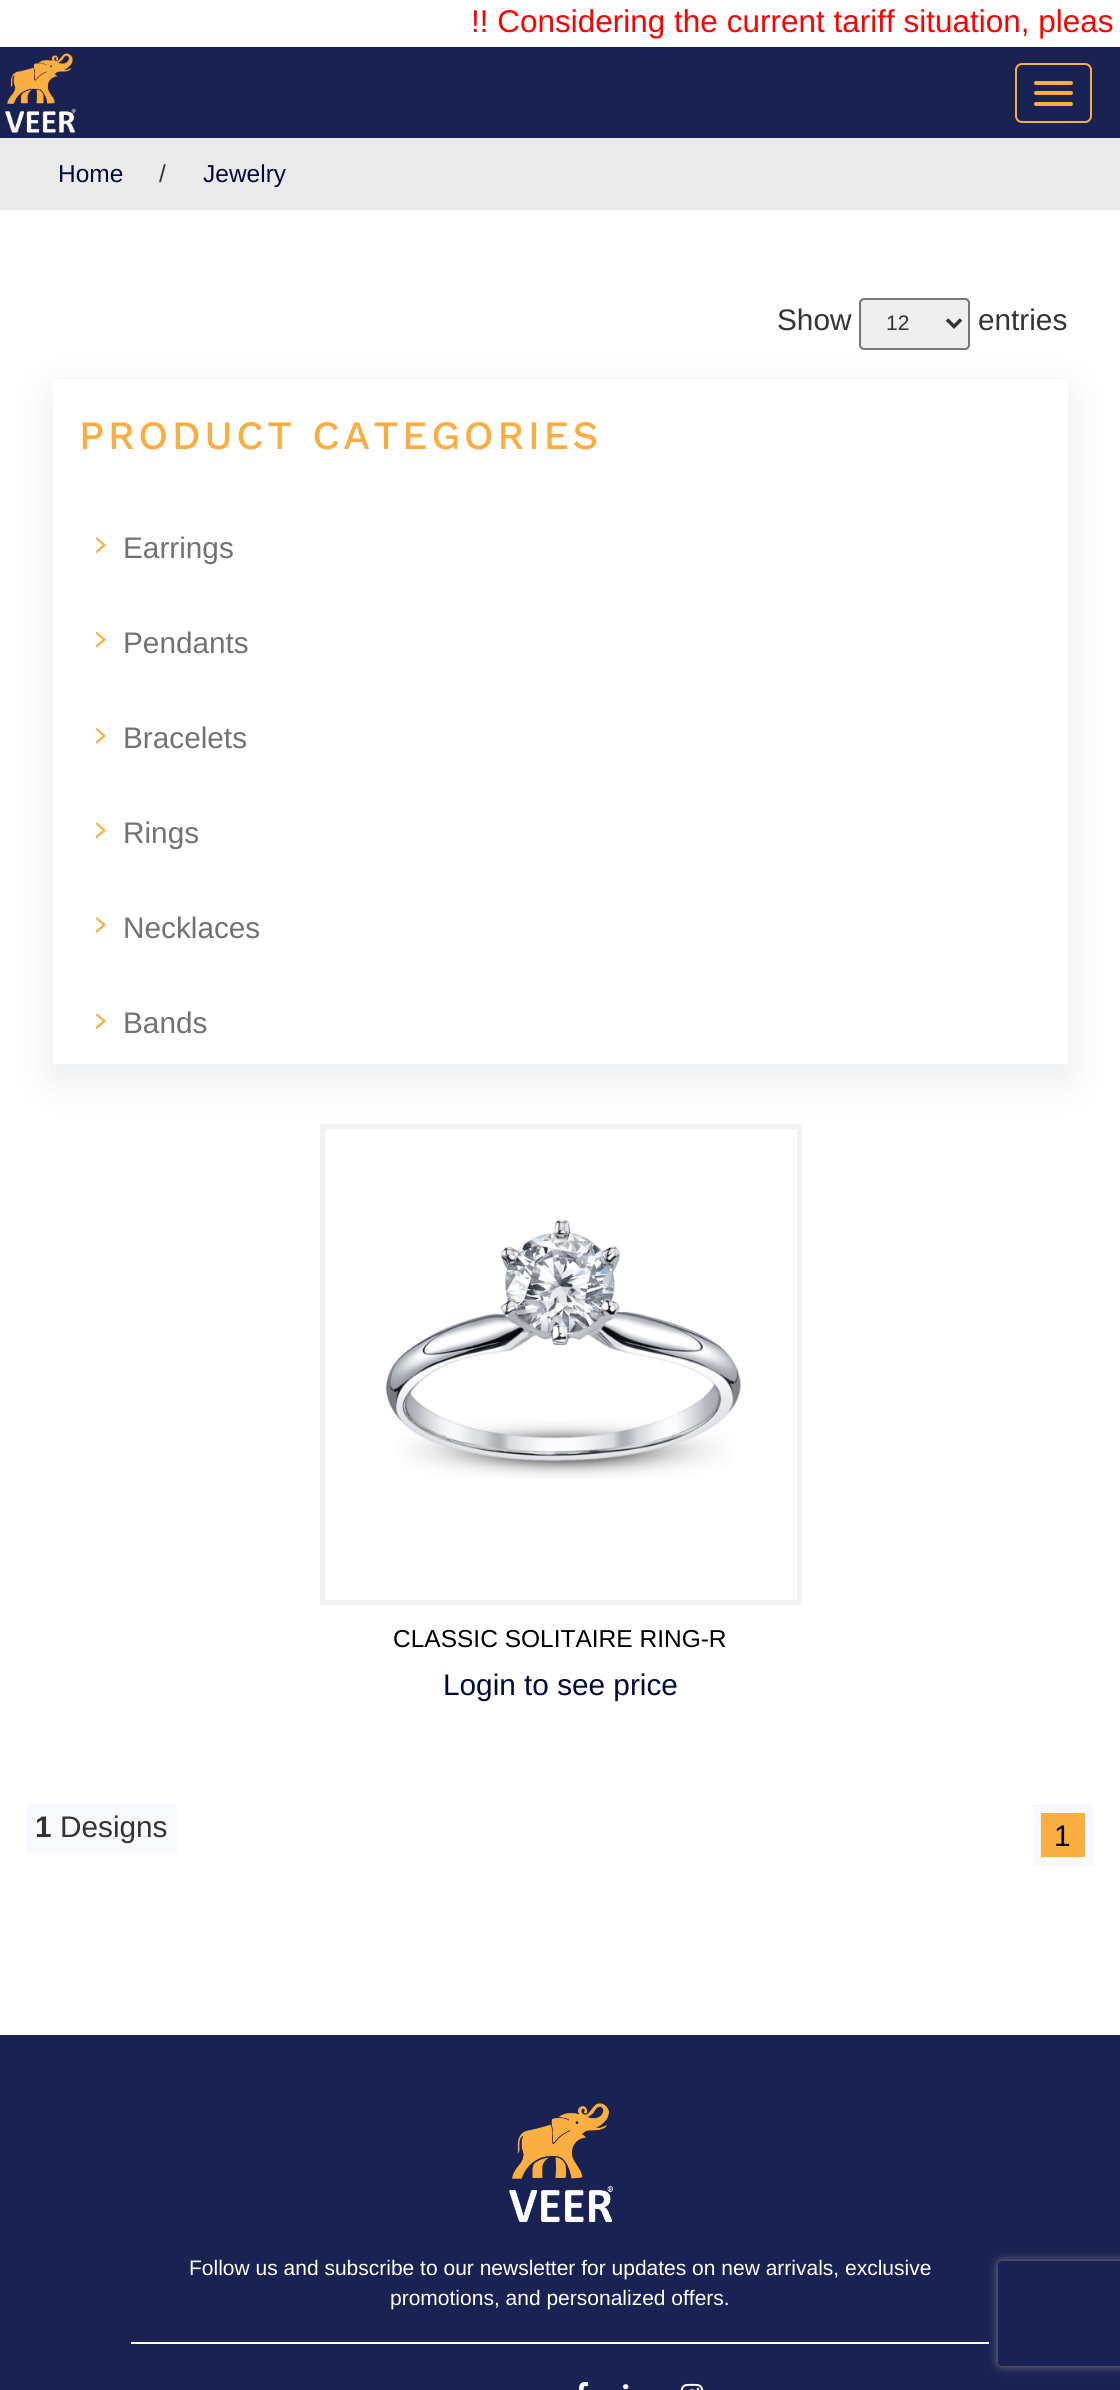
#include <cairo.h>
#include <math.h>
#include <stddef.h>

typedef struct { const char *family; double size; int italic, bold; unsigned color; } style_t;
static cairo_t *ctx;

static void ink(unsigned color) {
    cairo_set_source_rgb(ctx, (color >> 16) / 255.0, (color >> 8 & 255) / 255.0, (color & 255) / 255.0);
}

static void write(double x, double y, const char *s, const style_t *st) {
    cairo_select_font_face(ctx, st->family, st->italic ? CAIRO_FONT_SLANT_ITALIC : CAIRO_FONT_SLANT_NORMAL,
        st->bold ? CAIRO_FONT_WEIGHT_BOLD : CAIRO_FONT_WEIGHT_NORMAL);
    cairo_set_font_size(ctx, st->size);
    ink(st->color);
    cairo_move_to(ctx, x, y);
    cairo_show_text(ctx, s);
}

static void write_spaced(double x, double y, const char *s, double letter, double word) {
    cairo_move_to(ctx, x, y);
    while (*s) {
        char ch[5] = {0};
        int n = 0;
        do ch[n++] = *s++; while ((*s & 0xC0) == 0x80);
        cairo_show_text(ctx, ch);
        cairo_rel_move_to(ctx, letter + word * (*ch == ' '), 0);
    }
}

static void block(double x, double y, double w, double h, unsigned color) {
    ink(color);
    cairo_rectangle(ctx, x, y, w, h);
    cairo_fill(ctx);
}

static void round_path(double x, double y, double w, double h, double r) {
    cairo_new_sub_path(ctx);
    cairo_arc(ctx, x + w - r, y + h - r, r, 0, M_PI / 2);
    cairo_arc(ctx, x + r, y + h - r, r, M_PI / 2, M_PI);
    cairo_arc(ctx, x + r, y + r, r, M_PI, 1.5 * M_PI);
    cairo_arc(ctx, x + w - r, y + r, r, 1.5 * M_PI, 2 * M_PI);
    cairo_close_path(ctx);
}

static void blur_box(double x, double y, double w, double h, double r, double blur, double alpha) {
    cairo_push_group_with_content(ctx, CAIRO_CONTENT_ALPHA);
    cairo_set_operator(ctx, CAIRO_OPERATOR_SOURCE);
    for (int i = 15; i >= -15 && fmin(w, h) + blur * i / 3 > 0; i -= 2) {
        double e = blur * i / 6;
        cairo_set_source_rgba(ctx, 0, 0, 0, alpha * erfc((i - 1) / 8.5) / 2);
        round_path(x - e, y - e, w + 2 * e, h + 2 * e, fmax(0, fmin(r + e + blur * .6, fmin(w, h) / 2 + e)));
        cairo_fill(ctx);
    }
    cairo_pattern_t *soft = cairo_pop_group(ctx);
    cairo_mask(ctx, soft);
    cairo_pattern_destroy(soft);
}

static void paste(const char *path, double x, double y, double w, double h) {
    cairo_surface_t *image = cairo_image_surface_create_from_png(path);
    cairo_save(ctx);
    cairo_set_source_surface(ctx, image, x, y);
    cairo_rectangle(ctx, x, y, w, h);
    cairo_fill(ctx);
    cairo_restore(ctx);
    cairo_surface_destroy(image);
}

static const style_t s1 = {"Liberation Sans", 31.5, 0, 0, 0xff0000};
static const style_t s2 = {"Liberation Sans", 24.5, 0, 0, 0x01093c};
static const style_t s3 = {"Liberation Sans", 24.5, 0, 0, 0x333333};
static const style_t s4 = {"Liberation Sans", 29.75, 0, 0, 0x333333};
static const style_t s5 = {"Liberation Sans", 21, 0, 0, 0x333333};
static const style_t s6 = {"Liberation Sans", 29.75, 0, 0, 0x727272};
static const style_t s7 = {"Liberation Sans", 24.5, 0, 0, 0x000000};
static const style_t s8 = {"Liberation Sans", 29.75, 0, 0, 0x01093c};
static const style_t s9 = {"Liberation Sans", 29.75, 0, 1, 0x333333};
static const style_t s10 = {"Liberation Sans", 29.75, 0, 0, 0x000000};
static const style_t s11 = {"Liberation Sans", 21, 0, 0, 0xffffff};

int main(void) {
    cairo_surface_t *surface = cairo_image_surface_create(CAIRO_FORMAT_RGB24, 1120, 2390);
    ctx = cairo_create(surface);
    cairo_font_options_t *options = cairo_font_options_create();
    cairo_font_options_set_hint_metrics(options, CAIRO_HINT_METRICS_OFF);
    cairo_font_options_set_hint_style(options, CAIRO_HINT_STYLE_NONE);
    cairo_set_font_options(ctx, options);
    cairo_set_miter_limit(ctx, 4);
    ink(0xffffff);
    cairo_paint(ctx);
    write(471, 32, "!! Considering the current tariff situation, pleas", &s1);
    block(0, 47, 1120, 91, 0x1a2253);
    paste("pic1.png", 5, 53, 71, 80);
    round_path(1016, 64, 75, 58, 6);
    ink(0xfaae41);
    cairo_stroke(ctx);
    round_path(1034, 81, 39, 4, 2);
    cairo_fill(ctx);
    round_path(1034, 91, 39, 4, 2);
    cairo_fill(ctx);
    round_path(1034, 102, 39, 4, 2);
    cairo_fill(ctx);
    block(0, 138, 1120, 72, 0xeaeaea);
    write(58, 182, "Home", &s2);
    write(159, 182, "/", &s3);
    write(203, 182, "Jewelry", &s2);
    write(777, 330, "Show", &s4);
    ink(0xefefef);
    round_path(860, 299, 109, 50, 4);
    cairo_fill_preserve(ctx);
    ink(0x767676);
    cairo_stroke(ctx);
    cairo_new_path(ctx);
    cairo_move_to(ctx, 947, 319.5);
    cairo_line_to(ctx, 954, 326.5);
    cairo_line_to(ctx, 961, 319.5);
    ink(0x333333);
    cairo_set_line_width(ctx, 3.5);
    cairo_stroke(ctx);
    write(886, 330, "12", &s5);
    write(978, 330, "entries", &s4);
    cairo_save(ctx);
    cairo_set_fill_rule(ctx, CAIRO_FILL_RULE_EVEN_ODD);
    cairo_new_path(ctx);
    cairo_move_to(ctx, 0, 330);
    cairo_line_to(ctx, 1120, 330);
    cairo_line_to(ctx, 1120, 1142);
    cairo_line_to(ctx, 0, 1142);
    cairo_close_path(ctx);
    cairo_move_to(ctx, 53, 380);
    cairo_line_to(ctx, 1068, 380);
    cairo_line_to(ctx, 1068, 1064);
    cairo_line_to(ctx, 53, 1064);
    cairo_close_path(ctx);
    cairo_clip(ctx);
    ink(0x959da5);
    blur_box(53, 394, 1015, 684, 0, 21, 0.2);
    cairo_restore(ctx);
    cairo_select_font_face(ctx, "Work Sans Medium", CAIRO_FONT_SLANT_NORMAL, CAIRO_FONT_WEIGHT_NORMAL);
    cairo_set_font_size(ctx, 40.25);
    ink(0xfaae41);
    write_spaced(79, 449, "PRODUCT CATEGORIES", 3.5, 0);
    paste("pic2.png", 95, 537, 11, 16);
    write(123, 558, "Earrings", &s6);
    paste("pic3.png", 95, 632, 11, 16);
    write(123, 653, "Pendants", &s6);
    paste("pic4.png", 95, 728, 11, 16);
    write(123, 748, "Bracelets", &s6);
    paste("pic5.png", 95, 822, 11, 17);
    write(123, 843, "Rings", &s6);
    paste("pic4.png", 95, 917, 11, 16);
    write(123, 938, "Necklaces", &s6);
    paste("pic6.png", 95, 1013, 11, 16);
    write(123, 1033, "Bands", &s6);
    cairo_rectangle(ctx, 322.5, 1126.5, 477, 476);
    ink(0xf2f2f2);
    cairo_set_line_width(ctx, 5);
    cairo_stroke(ctx);
    paste("pic7.png", 385, 1219, 356, 260);
    write(393, 1647, "CLASSIC SOLITAIRE RING-R", &s7);
    write(443, 1695, "Login to see price", &s8);
    block(26, 1804, 151, 49, 0xf8f8ff);
    write(35, 1837, "1", &s9);
    write(60, 1837, "Designs", &s4);
    block(1033, 1804, 61, 62, 0xf8f8ff);
    block(1041, 1813, 44, 44, 0xfaae41);
    write(1054, 1846, "1", &s10);
    block(0, 2035, 1120, 355, 0x1a2253);
    paste("pic8.png", 509, 2103, 104, 119);
    block(131, 2342, 858, 2, 0xffffff);
    write(189, 2275, "Follow us and subscribe to our newsletter for updates on new arrivals, exclusive", &s11);
    write(390, 2305, "promotions, and personalized offers.", &s11);
    paste("pic9.png", 579, 2382, 10, 8);
    paste("pic10.png", 623, 2384, 6, 6);
    paste("pic11.png", 680, 2383, 24, 7);
    cairo_save(ctx);
    cairo_set_fill_rule(ctx, CAIRO_FILL_RULE_EVEN_ODD);
    cairo_new_path(ctx);
    cairo_move_to(ctx, 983, 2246);
    cairo_line_to(ctx, 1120, 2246);
    cairo_line_to(ctx, 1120, 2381);
    cairo_line_to(ctx, 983, 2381);
    cairo_close_path(ctx);
    cairo_move_to(ctx, 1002, 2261);
    cairo_line_to(ctx, 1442, 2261);
    cairo_curve_to(ctx, 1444, 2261, 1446, 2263, 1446, 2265);
    cairo_line_to(ctx, 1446, 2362);
    cairo_curve_to(ctx, 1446, 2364, 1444, 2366, 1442, 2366);
    cairo_line_to(ctx, 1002, 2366);
    cairo_curve_to(ctx, 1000, 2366, 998, 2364, 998, 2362);
    cairo_line_to(ctx, 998, 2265);
    cairo_curve_to(ctx, 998, 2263, 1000, 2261, 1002, 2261);
    cairo_close_path(ctx);
    cairo_clip(ctx);
    ink(0x808080);
    blur_box(998, 2261, 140, 105, 4, 4.5, 1);
    cairo_restore(ctx);
    cairo_surface_write_to_png(surface, "screenshot.png");
    cairo_font_options_destroy(options);
    cairo_destroy(ctx);
    cairo_surface_destroy(surface);
    return 0;
}
